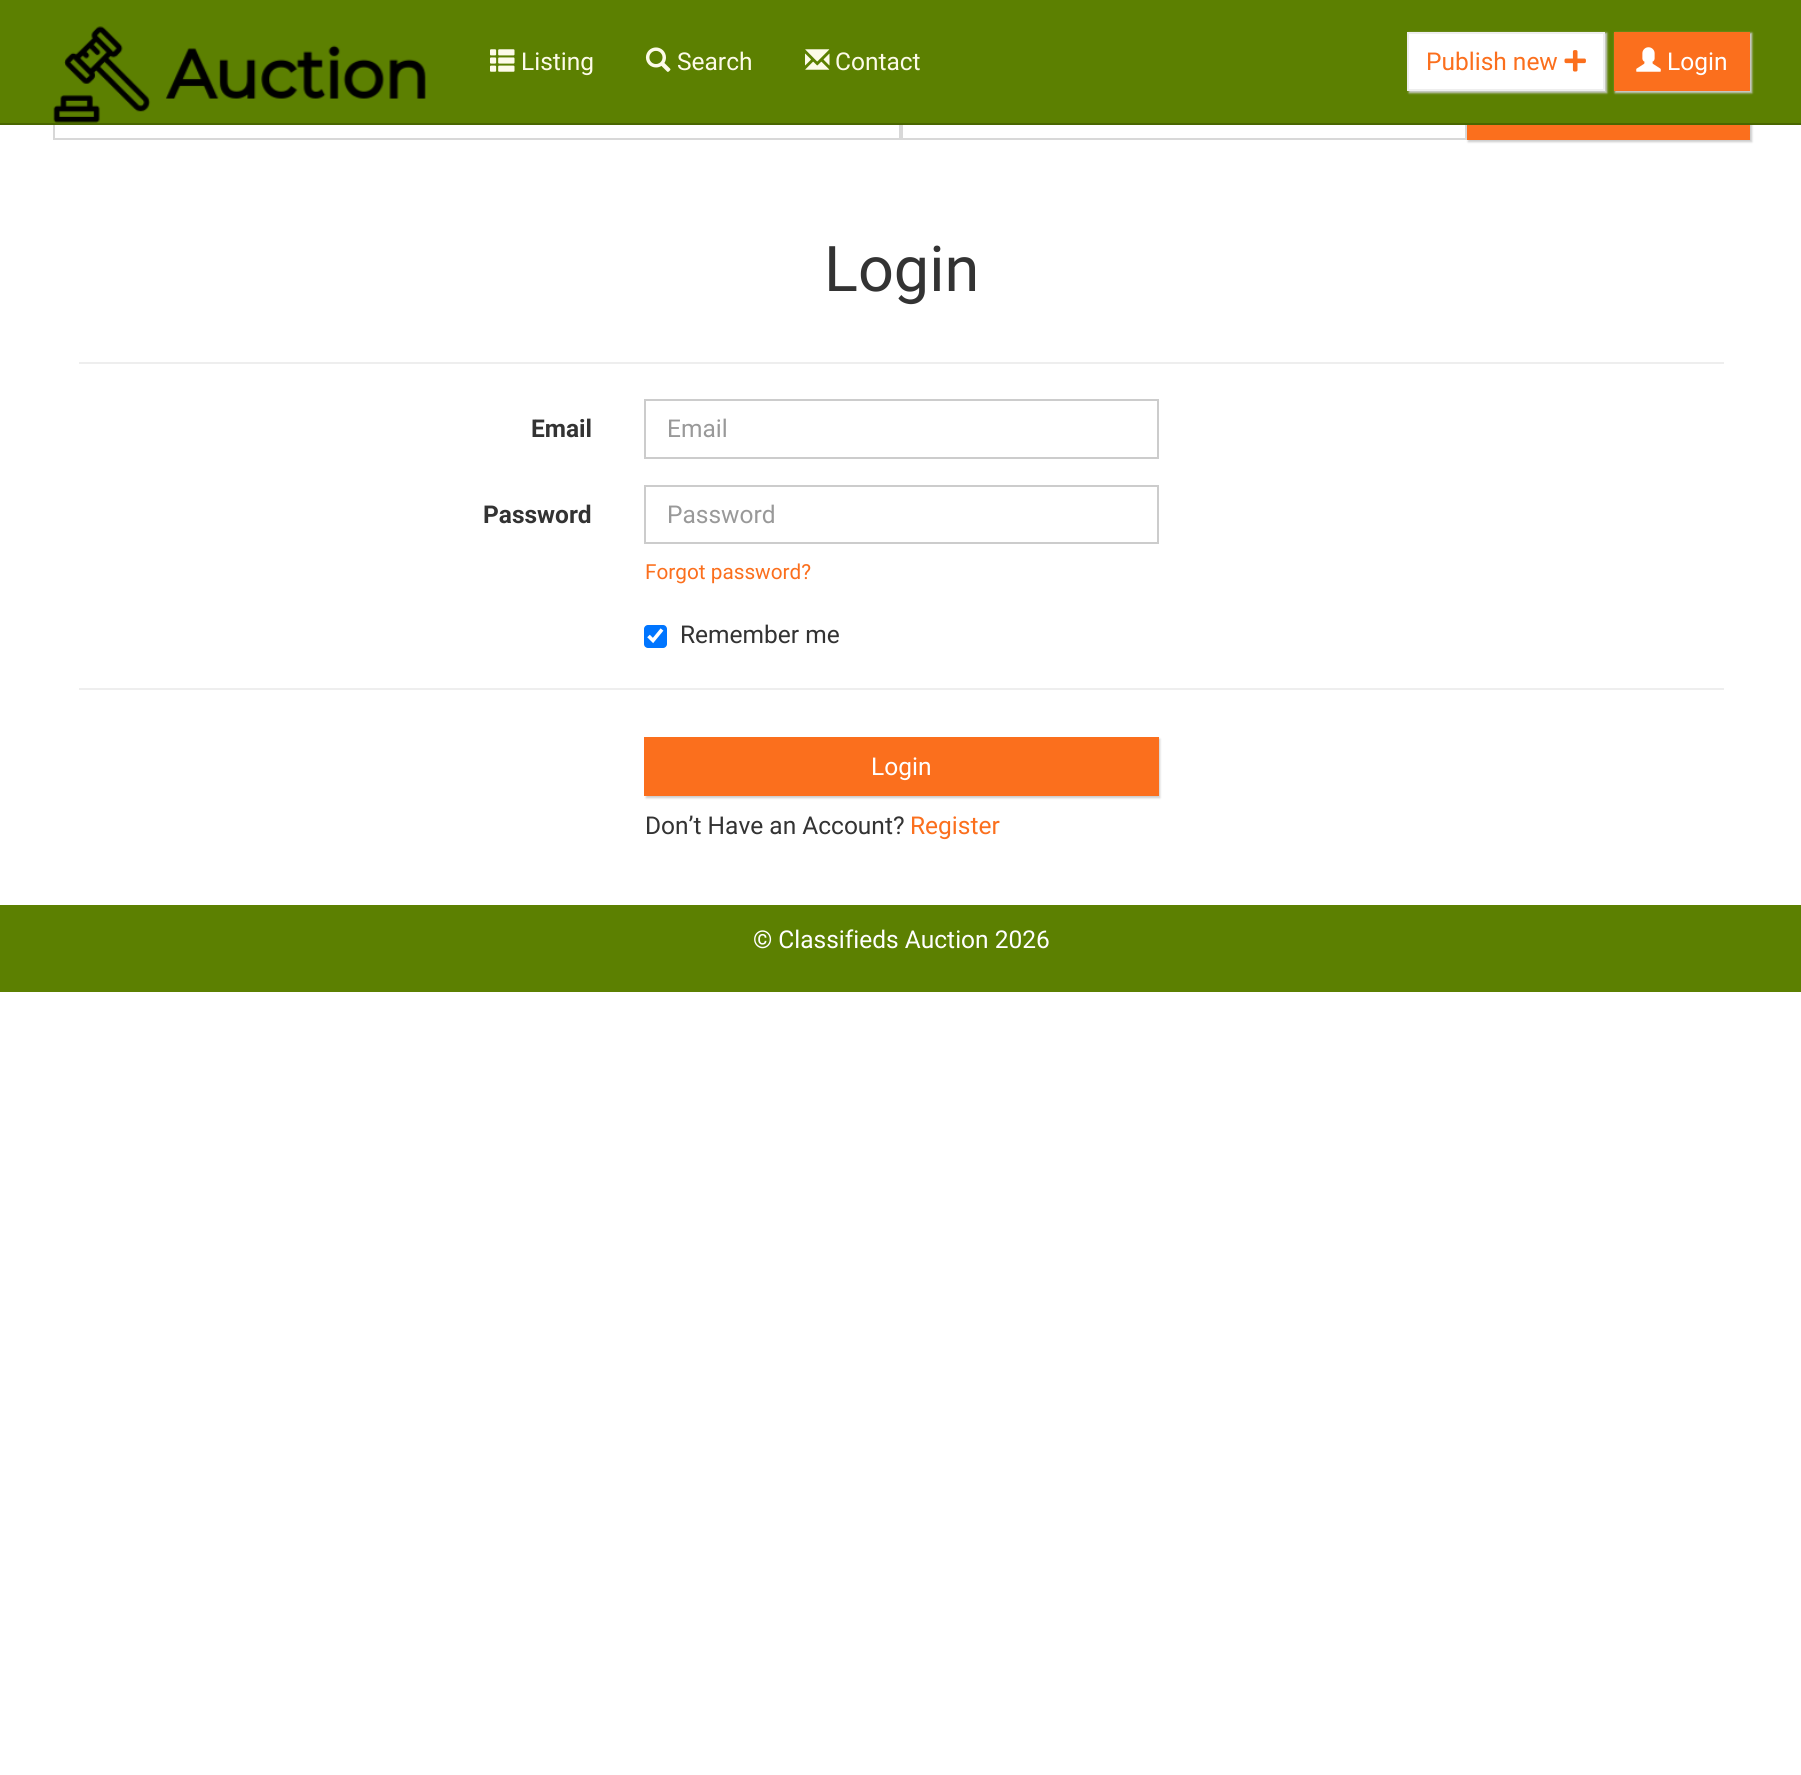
#include <cairo.h>
#include <math.h>
#include <stddef.h>

typedef struct { const char *family; double size; int italic, bold; unsigned color; } style_t;
static cairo_t *ctx;

static void ink(unsigned color) {
    cairo_set_source_rgb(ctx, (color >> 16) / 255.0, (color >> 8 & 255) / 255.0, (color & 255) / 255.0);
}

static void write(double x, double y, const char *s, const style_t *st) {
    cairo_select_font_face(ctx, st->family, st->italic ? CAIRO_FONT_SLANT_ITALIC : CAIRO_FONT_SLANT_NORMAL,
        st->bold ? CAIRO_FONT_WEIGHT_BOLD : CAIRO_FONT_WEIGHT_NORMAL);
    cairo_set_font_size(ctx, st->size);
    ink(st->color);
    cairo_move_to(ctx, x, y);
    cairo_show_text(ctx, s);
}

static void block(double x, double y, double w, double h, unsigned color) {
    ink(color);
    cairo_rectangle(ctx, x, y, w, h);
    cairo_fill(ctx);
}

static void round_path(double x, double y, double w, double h, double r) {
    cairo_new_sub_path(ctx);
    cairo_arc(ctx, x + w - r, y + h - r, r, 0, M_PI / 2);
    cairo_arc(ctx, x + r, y + h - r, r, M_PI / 2, M_PI);
    cairo_arc(ctx, x + r, y + r, r, M_PI, 1.5 * M_PI);
    cairo_arc(ctx, x + w - r, y + r, r, 1.5 * M_PI, 2 * M_PI);
    cairo_close_path(ctx);
}

static void blur_box(double x, double y, double w, double h, double r, double blur, double alpha) {
    cairo_push_group_with_content(ctx, CAIRO_CONTENT_ALPHA);
    cairo_set_operator(ctx, CAIRO_OPERATOR_SOURCE);
    for (int i = 15; i >= -15 && fmin(w, h) + blur * i / 3 > 0; i -= 2) {
        double e = blur * i / 6;
        cairo_set_source_rgba(ctx, 0, 0, 0, alpha * erfc((i - 1) / 8.5) / 2);
        round_path(x - e, y - e, w + 2 * e, h + 2 * e, fmax(0, fmin(r + e + blur * .6, fmin(w, h) / 2 + e)));
        cairo_fill(ctx);
    }
    cairo_pattern_t *soft = cairo_pop_group(ctx);
    cairo_mask(ctx, soft);
    cairo_pattern_destroy(soft);
}

static void paste(const char *path, double x, double y, double w, double h) {
    cairo_surface_t *image = cairo_image_surface_create_from_png(path);
    cairo_save(ctx);
    cairo_set_source_surface(ctx, image, x, y);
    cairo_rectangle(ctx, x, y, w, h);
    cairo_fill(ctx);
    cairo_restore(ctx);
    cairo_surface_destroy(image);
}

static const style_t s1 = {"Roboto", 24.5, 0, 0, 0xfdfbe9};
static const style_t s2 = {"Roboto", 24.5, 0, 0, 0xfb6f1d};
static const style_t s3 = {"Roboto", 24.5, 0, 0, 0xffffff};
static const style_t s4 = {"Roboto", 63, 0, 0, 0x333333};
static const style_t s5 = {"Roboto", 24.5, 0, 1, 0x333333};
static const style_t s6 = {"Roboto", 24.5, 0, 0, 0x999999};
static const style_t s7 = {"Roboto", 20.75, 0, 0, 0xfb6f1d};
static const style_t s8 = {"Roboto", 24.5, 0, 0, 0x333333};

int main(void) {
    cairo_surface_t *surface = cairo_image_surface_create(CAIRO_FORMAT_RGB24, 1801, 1775);
    ctx = cairo_create(surface);
    cairo_font_options_t *options = cairo_font_options_create();
    cairo_font_options_set_hint_metrics(options, CAIRO_HINT_METRICS_OFF);
    cairo_font_options_set_hint_style(options, CAIRO_HINT_STYLE_NONE);
    cairo_set_font_options(ctx, options);
    cairo_set_miter_limit(ctx, 4);
    ink(0xffffff);
    cairo_paint(ctx);
    cairo_rectangle(ctx, 54, 62, 846, 77);
    ink(0xd8d8d8);
    cairo_stroke(ctx);
    cairo_rectangle(ctx, 902, 62, 564, 77);
    cairo_stroke(ctx);
    ink(0xcccccc);
    blur_box(1468, 63, 284, 79, 0, 1, 1);
    block(0, 0, 1801, 123, 0x5c8001);
    block(0, 123, 1801, 2, 0x496600);
    paste("pic1.png", 53, 26, 373, 97);
    paste("pic2.png", 490, 49, 25, 23);
    write(521, 70, "Listing", &s1);
    paste("pic3.png", 645, 47, 26, 25);
    write(677, 70, "Search", &s1);
    paste("pic4.png", 805, 49, 25, 21);
    write(835, 70, "Contact", &s1);
    ink(0xcccccc);
    blur_box(1409, 33, 198, 60, 0, 1, 1);
    ink(0xffffff);
    cairo_rectangle(ctx, 1408, 33, 196, 57);
    cairo_fill_preserve(ctx);
    ink(0xeeeeee);
    cairo_stroke(ctx);
    write(1426, 70, "Publish new", &s2);
    paste("pic5.png", 1564, 50, 22, 22);
    ink(0xcccccc);
    blur_box(1615, 33, 137, 60, 0, 1, 1);
    block(1614, 32, 136, 59, 0xfb6f1d);
    paste("pic6.png", 1636, 47, 25, 25);
    write(1667, 70, "Login", &s3);
    block(1467, 125, 283, 15, 0xfb6f1d);
    write(824, 291, "Login", &s4);
    block(79, 362, 1645, 2, 0xeeeeee);
    write(531, 437, "Email", &s5);
    cairo_rectangle(ctx, 645, 400, 513, 58);
    ink(0xcccccc);
    cairo_stroke(ctx);
    write(667, 437, "Email", &s6);
    write(483, 523, "Password", &s5);
    cairo_rectangle(ctx, 645, 486, 513, 57);
    ink(0xcccccc);
    cairo_stroke(ctx);
    write(667, 523, "Password", &s6);
    write(645, 579, "Forgot password?", &s7);
    ink(0x0075ff);
    round_path(644, 625, 23, 23, 4);
    cairo_fill(ctx);
    cairo_new_path(ctx);
    cairo_move_to(ctx, 648.5, 636);
    cairo_line_to(ctx, 653, 640.5);
    cairo_line_to(ctx, 662, 629.5);
    ink(0xffffff);
    cairo_set_line_width(ctx, 3.6);
    cairo_stroke(ctx);
    write(680, 643, "Remember me", &s8);
    block(79, 688, 1645, 2, 0xeeeeee);
    ink(0xcccccc);
    blur_box(646, 739, 514, 59, 0, 1, 1);
    block(644, 737, 515, 59, 0xfb6f1d);
    write(871, 775, "Login", &s3);
    write(645, 834, "Don’t Have an Account?", &s8);
    write(910, 834, "Register", &s2);
    block(0, 905, 1801, 87, 0x5c8001);
    write(753, 948, "© Classifieds Auction 2026", &s3);
    cairo_surface_write_to_png(surface, "screenshot.png");
    cairo_font_options_destroy(options);
    cairo_destroy(ctx);
    cairo_surface_destroy(surface);
    return 0;
}
